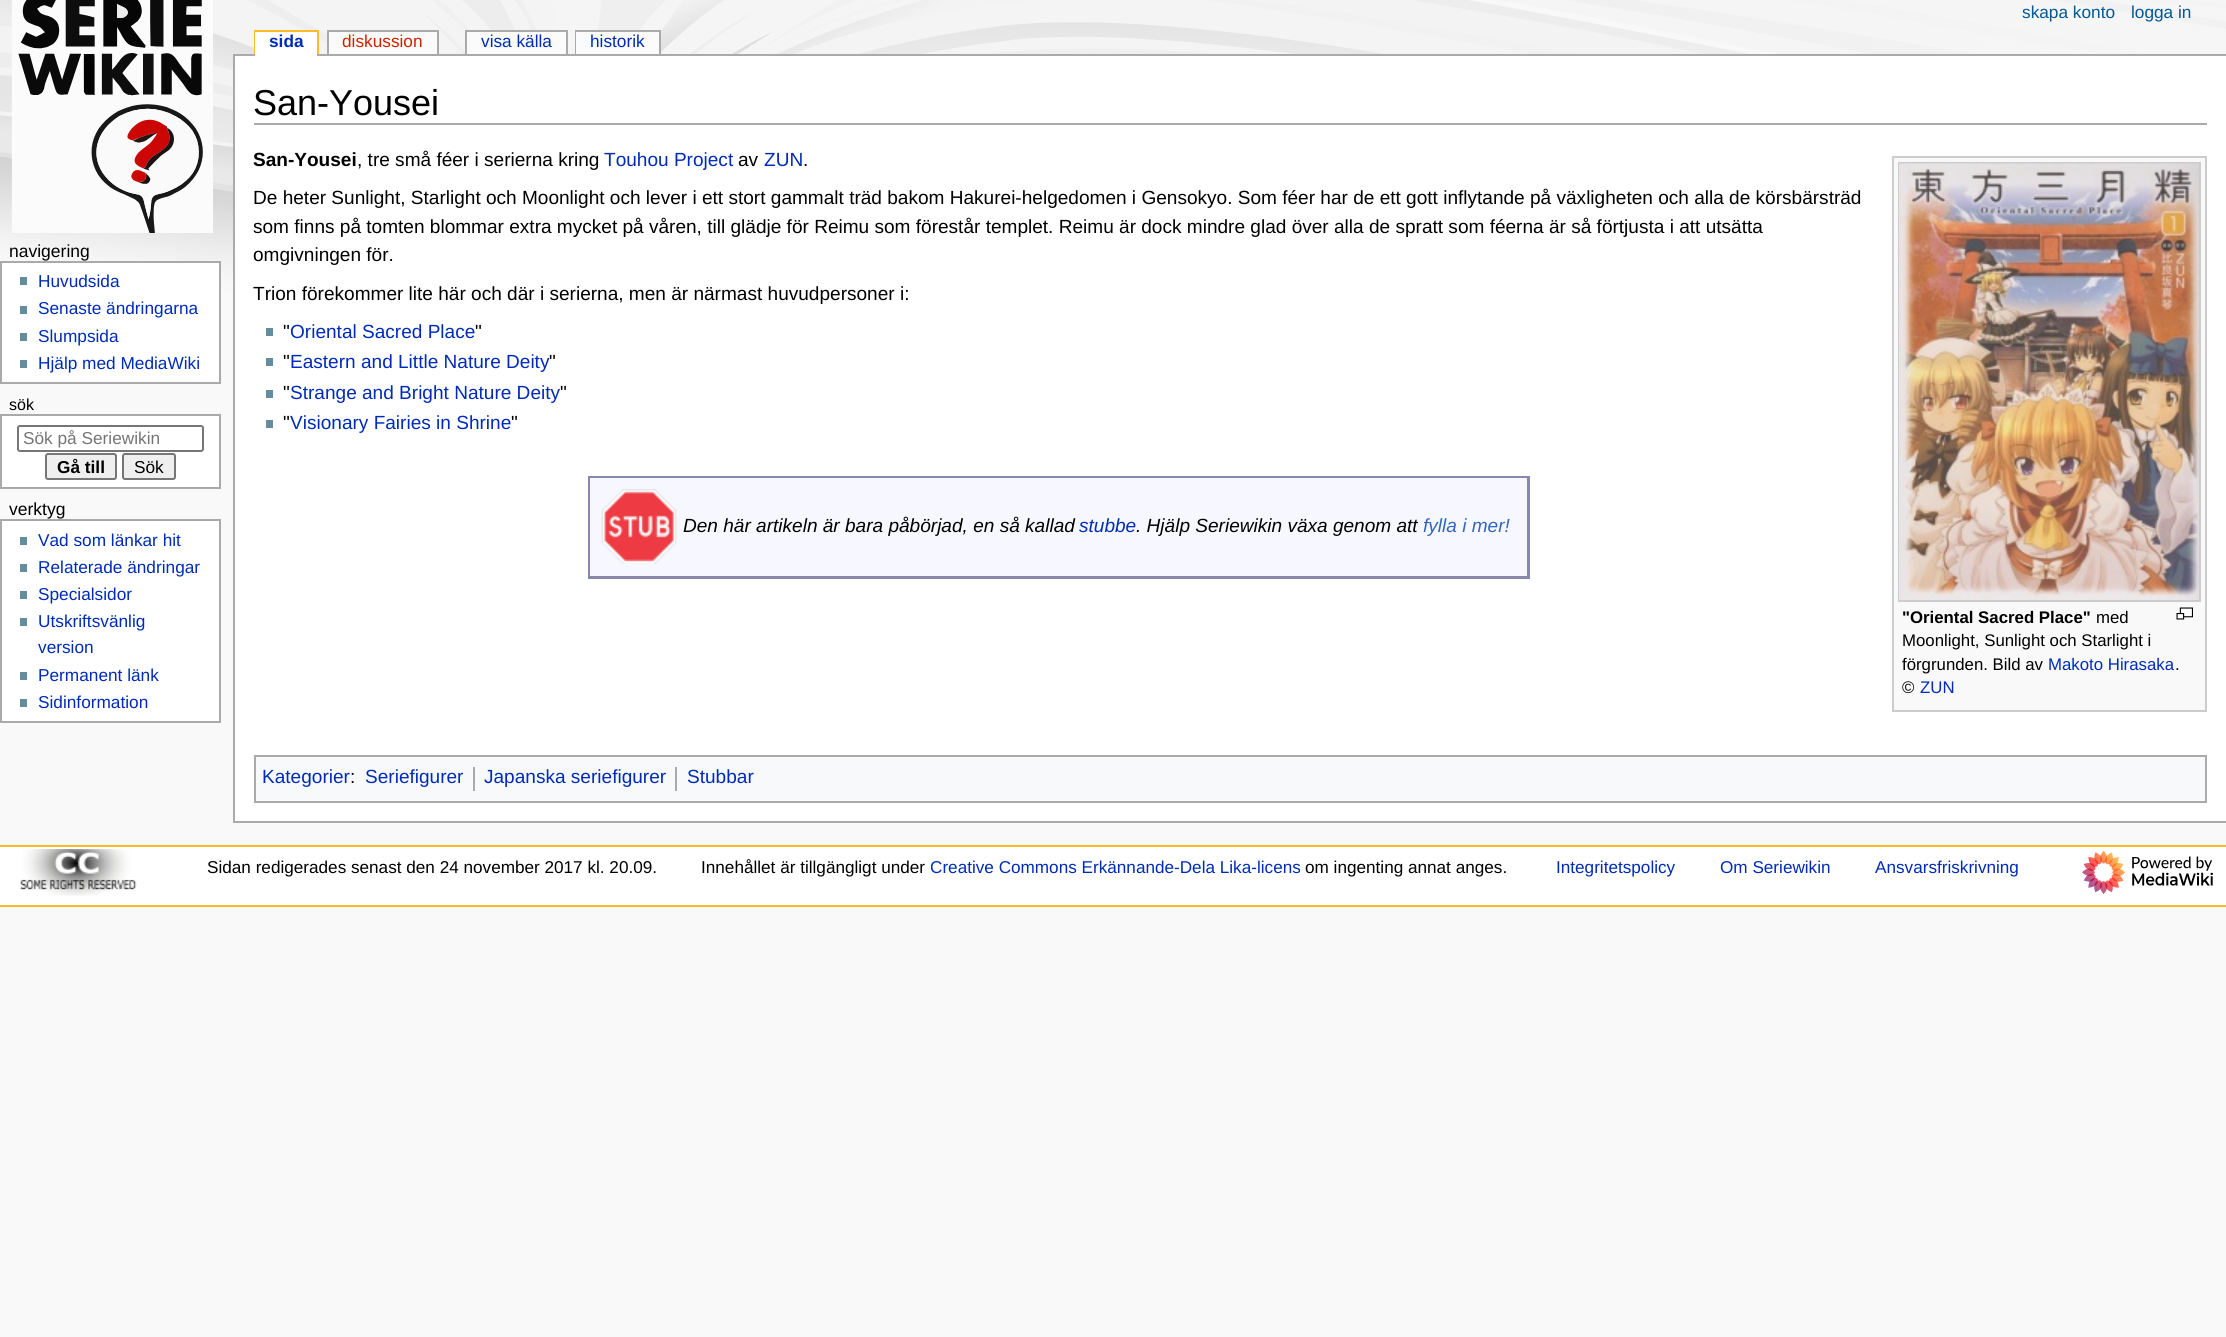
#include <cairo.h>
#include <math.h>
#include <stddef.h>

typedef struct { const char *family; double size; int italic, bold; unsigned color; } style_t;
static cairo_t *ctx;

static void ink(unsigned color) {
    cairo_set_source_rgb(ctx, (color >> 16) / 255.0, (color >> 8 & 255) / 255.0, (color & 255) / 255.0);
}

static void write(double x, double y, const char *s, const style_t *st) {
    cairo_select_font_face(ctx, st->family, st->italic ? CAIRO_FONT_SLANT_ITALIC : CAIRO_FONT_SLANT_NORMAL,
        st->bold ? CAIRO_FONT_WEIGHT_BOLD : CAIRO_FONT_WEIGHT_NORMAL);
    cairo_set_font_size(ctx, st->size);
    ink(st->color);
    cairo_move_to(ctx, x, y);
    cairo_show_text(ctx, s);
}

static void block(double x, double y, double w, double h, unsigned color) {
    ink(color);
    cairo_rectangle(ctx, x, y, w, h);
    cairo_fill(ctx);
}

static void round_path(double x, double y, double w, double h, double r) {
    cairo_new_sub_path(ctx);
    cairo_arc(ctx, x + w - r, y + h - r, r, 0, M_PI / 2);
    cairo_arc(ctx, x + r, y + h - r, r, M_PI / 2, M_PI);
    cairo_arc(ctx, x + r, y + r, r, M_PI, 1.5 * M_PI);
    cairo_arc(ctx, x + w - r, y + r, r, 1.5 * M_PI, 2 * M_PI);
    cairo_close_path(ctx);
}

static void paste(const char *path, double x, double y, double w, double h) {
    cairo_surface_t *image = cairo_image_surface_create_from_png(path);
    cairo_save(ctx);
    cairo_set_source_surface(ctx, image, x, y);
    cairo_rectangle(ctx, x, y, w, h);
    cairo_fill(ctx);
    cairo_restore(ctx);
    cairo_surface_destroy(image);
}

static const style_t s1 = {"Liberation Sans", 17.25, 0, 0, 0x005896};
static const style_t s2 = {"Liberation Sans", 17.25, 0, 1, 0x002bb8};
static const style_t s3 = {"Liberation Sans", 17.25, 0, 0, 0xcc2200};
static const style_t s4 = {"Liberation Sans", 17.25, 0, 0, 0x002bb8};
static const style_t s5 = {"Liberation Sans", 17.5, 0, 0, 0x000000};
static const style_t s6 = {"Liberation Sans", 16, 0, 0, 0x000000};
static const style_t s7 = {"Liberation Sans", 17.25, 0, 0, 0x757575};
static const style_t s8 = {"Liberation Sans", 17.25, 0, 1, 0x000000};
static const style_t s9 = {"Liberation Sans", 17.25, 0, 0, 0x000000};
static const style_t s10 = {"Liberation Sans", 36, 0, 0, 0x000000};
static const style_t s11 = {"Liberation Sans", 19.05, 0, 1, 0x000000};
static const style_t s12 = {"Liberation Sans", 19.05, 0, 0, 0x000000};
static const style_t s13 = {"Liberation Sans", 19.05, 0, 0, 0x002bb8};
static const style_t s14 = {"Liberation Sans", 19.05, 1, 0, 0x000000};
static const style_t s15 = {"Liberation Sans", 19.05, 1, 0, 0x002bb8};
static const style_t s16 = {"Liberation Sans", 19.05, 1, 0, 0x3366bb};
static const style_t s17 = {"Liberation Sans", 16.8, 0, 1, 0x000000};
static const style_t s18 = {"Liberation Sans", 16.8, 0, 0, 0x000000};
static const style_t s19 = {"Liberation Sans", 16.8, 0, 0, 0x002bb8};
static const style_t s20 = {"Liberation Sans", 17.15, 0, 0, 0x000000};
static const style_t s21 = {"Liberation Sans", 17.15, 0, 0, 0x002bb8};

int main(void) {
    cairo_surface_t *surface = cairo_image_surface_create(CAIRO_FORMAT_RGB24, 2226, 1337);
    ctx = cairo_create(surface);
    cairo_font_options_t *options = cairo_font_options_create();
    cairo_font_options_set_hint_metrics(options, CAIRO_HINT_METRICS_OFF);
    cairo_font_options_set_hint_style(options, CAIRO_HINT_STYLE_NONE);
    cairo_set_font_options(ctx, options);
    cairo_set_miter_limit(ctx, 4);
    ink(0xf9f9f9);
    cairo_paint(ctx);
    paste("pic1.png", 0, 0, 2226, 315);
    paste("pic2.png", 11, 0, 202, 233);
    write(2022, 18, "skapa konto", &s1);
    write(2131, 18, "logga in", &s1);
    block(254, 30, 64, 2, 0xfabd23);
    block(254, 30, 2, 24, 0xfabd23);
    block(233, 54, 1993, 2, 0xaaaaaa);
    block(255, 32, 62, 24, 0xffffff);
    write(269, 47, "sida", &s2);
    block(317, 30, 2, 24, 0xfabd23);
    block(329, 32, 108, 22, 0xfbfbfb);
    write(342, 47, "diskussion", &s3);
    block(327, 30, 111, 2, 0xaaaaaa);
    block(437, 30, 2, 24, 0xaaaaaa);
    block(327, 30, 2, 24, 0xaaaaaa);
    block(467, 32, 99, 22, 0xfbfbfb);
    write(481, 47, "visa källa", &s4);
    block(465, 30, 102, 2, 0xaaaaaa);
    block(566, 30, 2, 24, 0xaaaaaa);
    block(465, 30, 2, 24, 0xaaaaaa);
    block(575, 30, 85, 2, 0xaaaaaa);
    block(575, 30, 2, 24, 0xaaaaaa);
    block(576, 32, 83, 22, 0xfbfbfb);
    write(590, 47, "historik", &s4);
    block(659, 30, 2, 24, 0xaaaaaa);
    write(9, 257, "navigering", &s5);
    ink(0xffffff);
    cairo_rectangle(ctx, 1, 262, 219, 121);
    cairo_fill_preserve(ctx);
    ink(0xaaaaaa);
    cairo_stroke(ctx);
    block(20, 277, 7, 8, 0x638c9c);
    write(38, 287, "Huvudsida", &s4);
    block(20, 306, 7, 8, 0x638c9c);
    write(38, 314, "Senaste ändringarna", &s4);
    block(20, 333, 7, 8, 0x638c9c);
    write(38, 342, "Slumpsida", &s4);
    block(20, 360, 7, 8, 0x638c9c);
    write(38, 369, "Hjälp med MediaWiki", &s4);
    write(9, 410, "sök", &s6);
    ink(0xffffff);
    cairo_rectangle(ctx, 1, 415, 219, 73);
    cairo_fill_preserve(ctx);
    ink(0xaaaaaa);
    cairo_stroke(ctx);
    round_path(18, 426, 185, 25, 2);
    ink(0x767676);
    cairo_stroke(ctx);
    write(23, 444, "Sök på Seriewikin", &s7);
    ink(0xefefef);
    round_path(46, 454, 70, 25, 2);
    cairo_fill_preserve(ctx);
    ink(0x767676);
    cairo_stroke(ctx);
    write(57, 473, "Gå till", &s8);
    ink(0xefefef);
    round_path(123, 454, 52, 25, 2);
    cairo_fill_preserve(ctx);
    ink(0x767676);
    cairo_stroke(ctx);
    write(134, 473, "Sök", &s9);
    write(9, 515, "verktyg", &s5);
    ink(0xffffff);
    cairo_rectangle(ctx, 1, 520, 219, 202);
    cairo_fill_preserve(ctx);
    ink(0xaaaaaa);
    cairo_stroke(ctx);
    block(20, 537, 7, 8, 0x638c9c);
    write(38, 546, "Vad som länkar hit", &s4);
    block(20, 564, 7, 8, 0x638c9c);
    write(38, 573, "Relaterade ändringar", &s4);
    block(20, 591, 7, 8, 0x638c9c);
    write(38, 600, "Specialsidor", &s4);
    block(20, 618, 7, 8, 0x638c9c);
    write(38, 627, "Utskriftsvänlig", &s4);
    write(38, 653, "version", &s4);
    block(20, 672, 7, 8, 0x638c9c);
    write(38, 681, "Permanent länk", &s4);
    block(20, 699, 7, 8, 0x638c9c);
    write(38, 708, "Sidinformation", &s4);
    block(235, 56, 1991, 765, 0xffffff);
    block(233, 821, 1993, 2, 0xaaaaaa);
    block(233, 54, 2, 768, 0xaaaaaa);
    block(254, 123, 1953, 2, 0xaaaaaa);
    write(253, 115, "San-Yousei", &s10);
    write(253, 166, "San-Yousei", &s11);
    write(357, 166, ", tre små féer i serierna kring", &s12);
    write(604, 166, "Touhou Project", &s13);
    write(738, 166, "av", &s12);
    write(764, 166, "ZUN", &s13);
    write(803, 166, ".", &s12);
    write(253, 204, "De heter Sunlight, Starlight och Moonlight och lever i ett stort gammalt träd bakom Hakurei-helgedomen i Gensokyo. Som féer har de ett gott inflytande på växligheten och alla de körsbärsträd", &s12);
    write(253, 233, "som finns på tomten blommar extra mycket på våren, till glädje för Reimu som förestår templet. Reimu är dock mindre glad över alla de spratt som féerna är så förtjusta i att utsätta", &s12);
    write(253, 261, "omgivningen för.", &s12);
    write(253, 300, "Trion förekommer lite här och där i serierna, men är närmast huvudpersoner i:", &s12);
    block(266, 328, 7, 8, 0x638c9c);
    write(283, 338, "\"", &s12);
    write(290, 338, "Oriental Sacred Place", &s13);
    write(475, 338, "\"", &s12);
    block(266, 358, 7, 8, 0x638c9c);
    write(283, 368, "\"", &s12);
    write(290, 368, "Eastern and Little Nature Deity", &s13);
    write(549, 368, "\"", &s12);
    block(266, 390, 7, 8, 0x638c9c);
    write(283, 399, "\"", &s12);
    write(290, 399, "Strange and Bright Nature Deity", &s13);
    write(560, 399, "\"", &s12);
    block(266, 420, 7, 8, 0x638c9c);
    write(283, 429, "\"", &s12);
    write(290, 429, "Visionary Fairies in Shrine", &s13);
    write(511, 429, "\"", &s12);
    block(590, 478, 937, 98, 0xf7f8ff);
    block(588, 476, 942, 2, 0x8888aa);
    block(1527, 476, 3, 103, 0x8888aa);
    block(588, 576, 942, 3, 0x8888aa);
    block(588, 476, 2, 103, 0x8888aa);
    paste("pic3.png", 601, 489, 76, 75);
    write(683, 532, "Den här artikeln är bara påbörjad, en så kallad", &s14);
    write(1079, 532, "stubbe", &s15);
    write(1136, 532, ". Hjälp Seriewikin växa genom att", &s14);
    write(1423, 532, "fylla i mer!", &s16);
    block(1894, 158, 311, 552, 0xf9f9f9);
    block(1892, 156, 315, 2, 0xcccccc);
    block(1892, 710, 315, 2, 0xcccccc);
    block(2205, 156, 2, 555, 0xcccccc);
    block(1892, 156, 2, 555, 0xcccccc);
    cairo_rectangle(ctx, 1899, 163, 301, 438);
    cairo_stroke(ctx);
    paste("pic4.png", 1899, 163, 300, 437);
    paste("pic5.png", 2176, 607, 17, 13);
    write(1902, 623, "\"Oriental Sacred Place\"", &s17);
    write(2096, 623, "med", &s18);
    write(1902, 646, "Moonlight, Sunlight och Starlight i", &s18);
    write(1902, 670, "förgrunden. Bild av", &s18);
    write(2048, 670, "Makoto Hirasaka", &s19);
    write(2175, 670, ".", &s18);
    write(1902, 693, "©", &s18);
    write(1920, 693, "ZUN", &s19);
    ink(0xf8f9fa);
    cairo_rectangle(ctx, 255, 756, 1951, 46);
    cairo_fill_preserve(ctx);
    ink(0xaaaaaa);
    cairo_stroke(ctx);
    write(262, 783, "Kategorier", &s13);
    write(350, 783, ":", &s12);
    write(365, 783, "Seriefigurer", &s13);
    block(473, 767, 2, 24, 0xaaaaaa);
    write(484, 783, "Japanska seriefigurer", &s13);
    block(675, 767, 2, 24, 0xaaaaaa);
    write(687, 783, "Stubbar", &s13);
    block(0, 847, 2226, 58, 0xffffff);
    block(0, 845, 2226, 2, 0xfabd23);
    block(0, 905, 2226, 2, 0xfabd23);
    paste("pic6.png", 20, 849, 117, 47);
    write(207, 873, "Sidan redigerades senast den 24 november 2017 kl. 20.09.", &s20);
    write(701, 873, "Innehållet är tillgängligt under", &s20);
    write(930, 873, "Creative Commons Erkännande-Dela Lika-licens", &s21);
    write(1305, 873, "om ingenting annat anges.", &s20);
    write(1556, 873, "Integritetspolicy", &s21);
    write(1720, 873, "Om Seriewikin", &s21);
    write(1875, 873, "Ansvarsfriskrivning", &s21);
    paste("pic7.png", 2082, 850, 131, 44);
    cairo_surface_write_to_png(surface, "screenshot.png");
    cairo_font_options_destroy(options);
    cairo_destroy(ctx);
    cairo_surface_destroy(surface);
    return 0;
}
